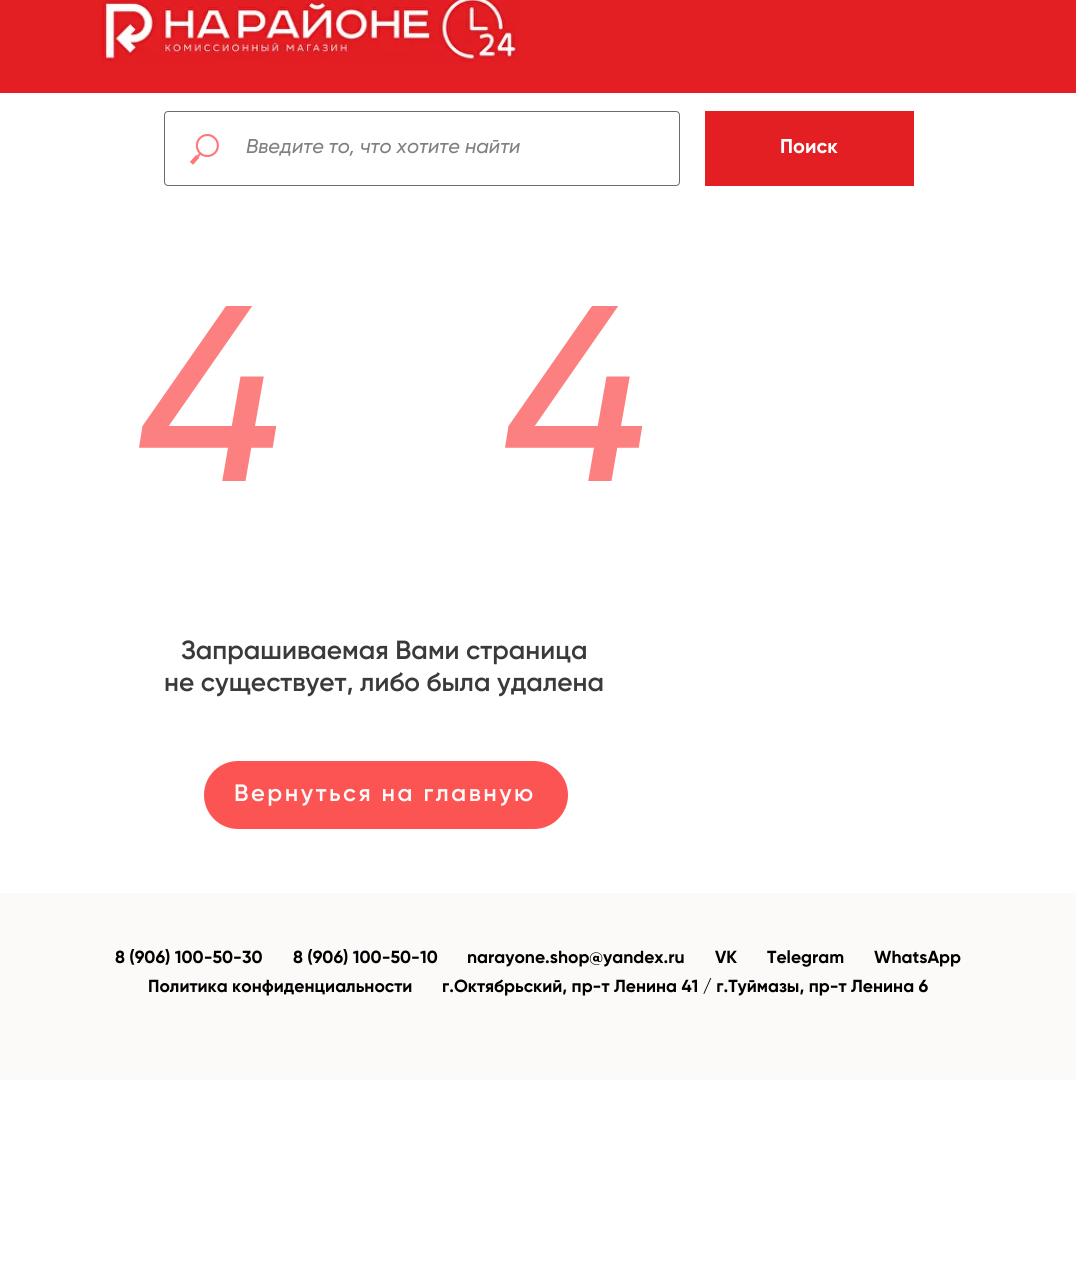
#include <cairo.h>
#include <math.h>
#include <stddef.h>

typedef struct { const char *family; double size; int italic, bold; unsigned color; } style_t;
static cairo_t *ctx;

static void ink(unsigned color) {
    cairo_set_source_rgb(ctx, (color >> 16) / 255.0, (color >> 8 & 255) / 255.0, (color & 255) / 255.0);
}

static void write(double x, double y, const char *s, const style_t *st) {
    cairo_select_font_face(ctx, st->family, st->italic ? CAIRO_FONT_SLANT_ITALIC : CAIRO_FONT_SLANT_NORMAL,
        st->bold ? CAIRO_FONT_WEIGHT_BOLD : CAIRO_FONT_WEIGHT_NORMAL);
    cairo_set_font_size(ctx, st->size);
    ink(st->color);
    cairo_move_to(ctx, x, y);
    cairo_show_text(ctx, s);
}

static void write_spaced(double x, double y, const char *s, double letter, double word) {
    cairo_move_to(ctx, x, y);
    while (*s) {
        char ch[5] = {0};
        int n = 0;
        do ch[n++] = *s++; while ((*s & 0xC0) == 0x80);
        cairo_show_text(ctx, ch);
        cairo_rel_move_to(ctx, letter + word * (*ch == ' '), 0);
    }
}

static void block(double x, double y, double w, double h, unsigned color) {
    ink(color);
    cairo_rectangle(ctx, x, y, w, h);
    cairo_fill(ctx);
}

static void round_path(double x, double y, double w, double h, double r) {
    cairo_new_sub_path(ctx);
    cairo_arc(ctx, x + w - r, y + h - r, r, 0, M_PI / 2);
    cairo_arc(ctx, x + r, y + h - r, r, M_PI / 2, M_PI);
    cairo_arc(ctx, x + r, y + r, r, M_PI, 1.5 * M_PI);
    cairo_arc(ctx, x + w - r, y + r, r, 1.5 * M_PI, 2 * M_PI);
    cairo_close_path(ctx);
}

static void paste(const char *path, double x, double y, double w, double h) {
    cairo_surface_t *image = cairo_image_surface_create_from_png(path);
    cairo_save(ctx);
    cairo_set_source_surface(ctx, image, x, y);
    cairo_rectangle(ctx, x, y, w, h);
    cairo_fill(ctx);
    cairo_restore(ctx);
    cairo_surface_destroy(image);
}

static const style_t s1 = {"Gilroy Medium", 20, 1, 0, 0x808080};
static const style_t s2 = {"Gilroy", 20, 0, 1, 0xffffff};
static const style_t s3 = {"Gilroy Medium", 250, 1, 0, 0xfc8080};
static const style_t s4 = {"Gilroy SemiBold", 26.25, 0, 0, 0x3b3a3a};
static const style_t s5 = {"Gilroy", 17.5, 0, 1, 0x000000};

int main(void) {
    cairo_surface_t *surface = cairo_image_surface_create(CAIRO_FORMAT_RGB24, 1076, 1275);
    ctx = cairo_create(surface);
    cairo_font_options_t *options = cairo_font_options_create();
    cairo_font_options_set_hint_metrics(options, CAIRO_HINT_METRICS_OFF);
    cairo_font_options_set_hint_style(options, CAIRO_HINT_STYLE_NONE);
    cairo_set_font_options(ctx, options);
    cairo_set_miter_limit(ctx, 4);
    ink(0xffffff);
    cairo_paint(ctx);
    block(0, 0, 1076, 93, 0xe41f23);
    paste("pic1.png", 101, 0, 418, 62);
    round_path(164.5, 111.5, 515, 74, 3.5);
    ink(0x6b6b6b);
    cairo_set_line_width(ctx, 1);
    cairo_stroke(ctx);
    paste("pic2.png", 190, 134, 29, 31);
    write(246, 153, "Введите то, что хотите найти", &s1);
    block(705, 111, 209, 75, 0xe41f23);
    write(780, 153, "Поиск", &s2);
    write(138, 481, "4", &s3);
    write(504, 481, "4", &s3);
    write(181, 659, "Запрашиваемая Вами страница", &s4);
    write(164, 691, "не существует, либо была удалена", &s4);
    ink(0xfc5353);
    round_path(204, 761, 364, 68, 34);
    cairo_fill(ctx);
    cairo_set_font_size(ctx, 23.75);
    ink(0xfcf9f9);
    write_spaced(234, 801, "Вернуться на главную", 2.5, 0);
    block(0, 893, 1076, 187, 0xfcf9f9);
    write(115, 963, "8 (906) 100-50-30", &s5);
    write(293, 963, "8 (906) 100-50-10", &s5);
    write(467, 963, "narayone.shop@yandex.ru", &s5);
    write(715, 963, "VK", &s5);
    write(767, 963, "Telegram", &s5);
    write(874, 963, "WhatsApp", &s5);
    write(148, 992, "Политика конфиденциальности", &s5);
    write(442, 992, "г.Октябрьский, пр-т Ленина 41 / г.Туймазы, пр-т Ленина 6", &s5);
    cairo_surface_write_to_png(surface, "screenshot.png");
    cairo_font_options_destroy(options);
    cairo_destroy(ctx);
    cairo_surface_destroy(surface);
    return 0;
}
